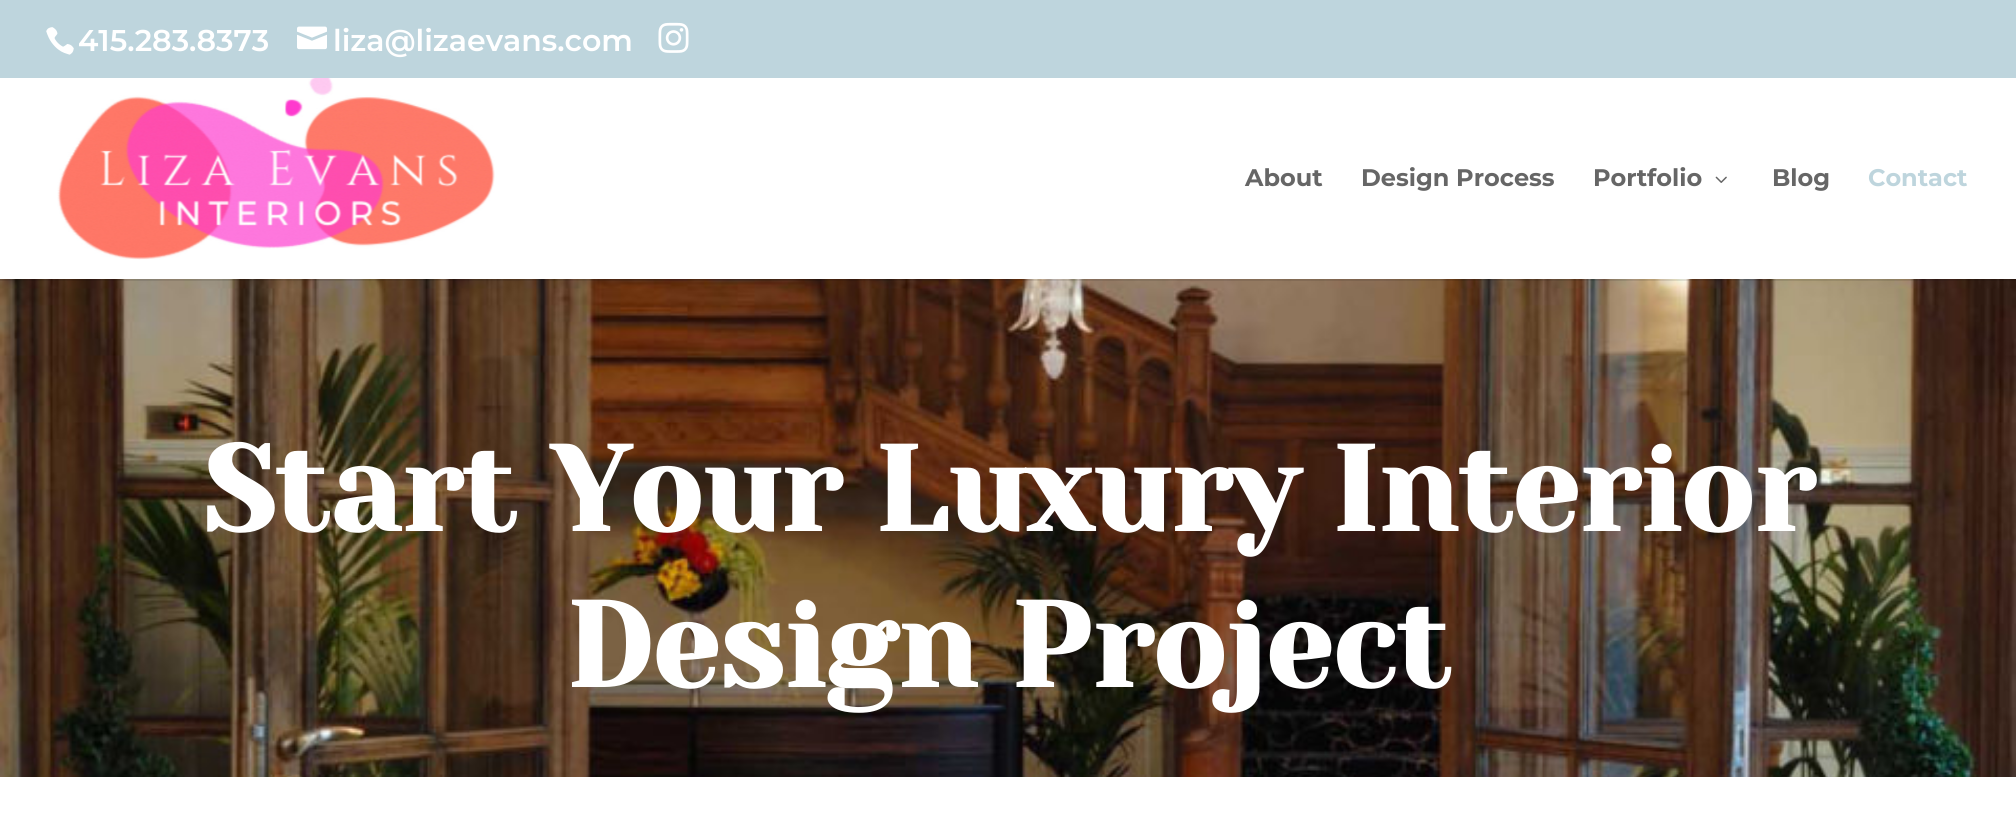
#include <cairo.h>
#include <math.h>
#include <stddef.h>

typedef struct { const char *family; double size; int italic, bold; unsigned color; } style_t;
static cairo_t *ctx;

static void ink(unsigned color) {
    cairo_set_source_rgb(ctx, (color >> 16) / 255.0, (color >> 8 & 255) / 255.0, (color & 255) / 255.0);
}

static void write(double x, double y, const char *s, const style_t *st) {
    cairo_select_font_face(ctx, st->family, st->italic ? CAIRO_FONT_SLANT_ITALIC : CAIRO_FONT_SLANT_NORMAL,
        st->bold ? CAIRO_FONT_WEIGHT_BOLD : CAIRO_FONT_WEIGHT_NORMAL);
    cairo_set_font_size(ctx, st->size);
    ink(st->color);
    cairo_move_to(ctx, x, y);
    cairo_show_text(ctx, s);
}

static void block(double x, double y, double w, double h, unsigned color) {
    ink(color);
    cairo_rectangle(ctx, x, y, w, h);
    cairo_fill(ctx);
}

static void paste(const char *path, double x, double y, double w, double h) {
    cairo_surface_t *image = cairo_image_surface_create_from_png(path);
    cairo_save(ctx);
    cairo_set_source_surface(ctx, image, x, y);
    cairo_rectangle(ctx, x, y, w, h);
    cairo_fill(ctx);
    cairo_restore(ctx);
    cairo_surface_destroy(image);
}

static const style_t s1 = {"Montserrat SemiBold", 30, 0, 0, 0xffffff};
static const style_t s2 = {"Montserrat", 24, 0, 1, 0x666666};
static const style_t s3 = {"Montserrat", 24, 0, 1, 0xbed5dd};
static const style_t s4 = {"Yeseva One", 120, 0, 1, 0xffffff};

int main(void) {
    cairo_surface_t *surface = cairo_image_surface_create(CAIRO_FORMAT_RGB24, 2016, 820);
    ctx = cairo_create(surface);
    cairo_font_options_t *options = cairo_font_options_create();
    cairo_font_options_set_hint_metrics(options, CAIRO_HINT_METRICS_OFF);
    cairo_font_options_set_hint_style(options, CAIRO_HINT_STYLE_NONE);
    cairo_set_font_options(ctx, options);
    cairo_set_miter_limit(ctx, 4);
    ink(0xffffff);
    cairo_paint(ctx);
    block(0, 0, 2016, 78, 0xbed5dd);
    paste("pic1.png", 46, 27, 28, 28);
    write(78, 51, "415.283.8373", &s1);
    paste("pic2.png", 297, 26, 30, 24);
    write(333, 51, "liza@lizaevans.com", &s1);
    paste("pic3.png", 658, 22, 31, 31);
    paste("pic6.png", 0, 279, 2016, 498);
    cairo_set_source_rgba(ctx, 0, 0, 0, 0.1);
    cairo_rectangle(ctx, 0, 279, 2016, 2);
    cairo_fill(ctx);
    paste("pic4.png", 57, 78, 438, 182);
    write(1245, 186, "About", &s2);
    write(1361, 186, "Design Process", &s2);
    write(1593, 186, "Portfolio", &s2);
    paste("pic5.png", 1715, 176, 12, 7);
    write(1772, 186, "Blog", &s2);
    write(1868, 186, "Contact", &s3);
    write(203, 531, "Start Your Luxury Interior", &s4);
    write(566, 687, "Design Project", &s4);
    cairo_surface_write_to_png(surface, "screenshot.png");
    cairo_font_options_destroy(options);
    cairo_destroy(ctx);
    cairo_surface_destroy(surface);
    return 0;
}
